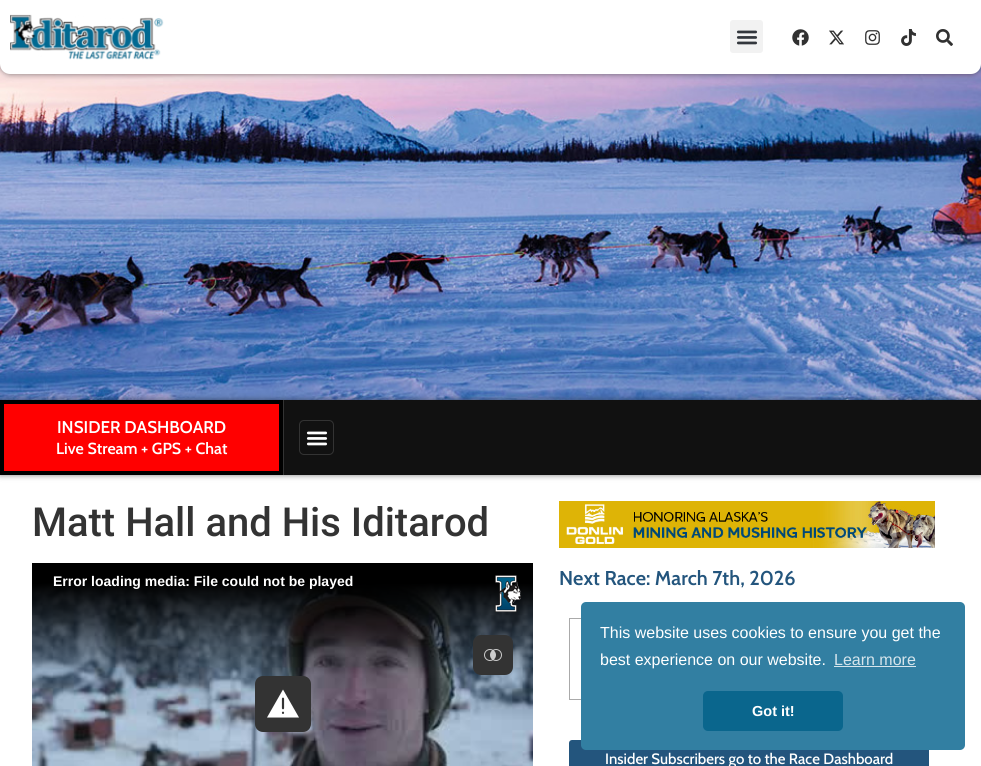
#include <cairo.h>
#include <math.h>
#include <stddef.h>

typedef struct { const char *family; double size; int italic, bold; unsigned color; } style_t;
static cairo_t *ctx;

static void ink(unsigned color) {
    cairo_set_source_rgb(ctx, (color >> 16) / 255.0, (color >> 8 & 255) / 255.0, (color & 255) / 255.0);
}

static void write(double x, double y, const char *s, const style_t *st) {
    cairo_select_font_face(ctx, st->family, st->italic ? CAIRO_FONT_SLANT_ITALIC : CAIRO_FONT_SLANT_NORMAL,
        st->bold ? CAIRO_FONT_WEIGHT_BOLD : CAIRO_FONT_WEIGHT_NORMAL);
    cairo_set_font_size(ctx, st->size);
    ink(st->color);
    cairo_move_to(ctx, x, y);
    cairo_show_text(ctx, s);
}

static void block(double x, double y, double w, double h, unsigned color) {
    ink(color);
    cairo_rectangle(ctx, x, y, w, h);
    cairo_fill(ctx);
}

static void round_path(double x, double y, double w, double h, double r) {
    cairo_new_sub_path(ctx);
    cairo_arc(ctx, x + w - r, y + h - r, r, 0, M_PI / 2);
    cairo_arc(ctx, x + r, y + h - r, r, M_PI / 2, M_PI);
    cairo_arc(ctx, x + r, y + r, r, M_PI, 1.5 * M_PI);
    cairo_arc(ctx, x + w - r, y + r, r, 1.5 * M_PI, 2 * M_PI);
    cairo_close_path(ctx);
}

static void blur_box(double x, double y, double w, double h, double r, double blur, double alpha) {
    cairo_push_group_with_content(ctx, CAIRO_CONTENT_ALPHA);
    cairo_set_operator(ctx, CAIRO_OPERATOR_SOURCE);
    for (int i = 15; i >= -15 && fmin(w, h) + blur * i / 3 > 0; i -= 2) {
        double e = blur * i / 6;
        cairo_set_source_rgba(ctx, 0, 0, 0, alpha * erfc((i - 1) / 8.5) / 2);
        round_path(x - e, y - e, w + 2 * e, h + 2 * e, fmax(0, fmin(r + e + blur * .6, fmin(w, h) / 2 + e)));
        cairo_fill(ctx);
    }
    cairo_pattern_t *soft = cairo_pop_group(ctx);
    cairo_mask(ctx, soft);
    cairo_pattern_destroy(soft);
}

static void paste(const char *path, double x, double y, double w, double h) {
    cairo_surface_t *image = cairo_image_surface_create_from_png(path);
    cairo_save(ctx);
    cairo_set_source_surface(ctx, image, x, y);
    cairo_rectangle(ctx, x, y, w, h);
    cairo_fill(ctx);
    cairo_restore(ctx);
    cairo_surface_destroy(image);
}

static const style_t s1 = {"Cabin SemiBold", 17, 0, 0, 0xffffff};
static const style_t s2 = {"Cabin SemiBold", 16, 0, 0, 0xffffff};
static const style_t s3 = {"Roboto Medium", 40, 0, 0, 0x333333};
static const style_t s4 = {"Liberation Sans", 14, 0, 1, 0xffffff};
static const style_t s5 = {"Cabin SemiBold", 20, 0, 0, 0x23557d};
static const style_t s6 = {"Cabin Medium", 15, 0, 0, 0xffffff};
static const style_t s7 = {"Liberation Sans", 16, 0, 0, 0xffffff};
static const style_t s8 = {"Liberation Sans", 16, 0, 0, 0xd6e5ec};
static const style_t s9 = {"Liberation Sans", 14.5, 0, 1, 0xffffff};

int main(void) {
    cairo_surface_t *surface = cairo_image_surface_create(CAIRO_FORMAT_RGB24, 981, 766);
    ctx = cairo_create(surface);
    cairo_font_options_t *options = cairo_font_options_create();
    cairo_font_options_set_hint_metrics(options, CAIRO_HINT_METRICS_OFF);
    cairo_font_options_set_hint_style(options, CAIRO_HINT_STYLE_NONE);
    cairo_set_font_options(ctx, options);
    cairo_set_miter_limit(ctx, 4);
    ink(0xffffff);
    cairo_paint(ctx);
    paste("pic1.png", 0, 64, 981, 336);
    ink(0x000000);
    blur_box(0, 0, 981, 74, 10, 3, 0.5);
    ink(0xffffff);
    cairo_new_path(ctx);
    cairo_move_to(ctx, 0, 0);
    cairo_line_to(ctx, 981, 0);
    cairo_line_to(ctx, 981, 64);
    cairo_curve_to(ctx, 981, 69.5, 976.5, 74, 971, 74);
    cairo_line_to(ctx, 10, 74);
    cairo_curve_to(ctx, 4.5, 74, 0, 69.5, 0, 64);
    cairo_close_path(ctx);
    cairo_fill(ctx);
    paste("pic2.png", 10, 14, 154, 46);
    ink(0xf2f2f2);
    round_path(730, 20, 33, 33, 3);
    cairo_fill(ctx);
    paste("pic3.png", 736, 30, 22, 15);
    paste("pic4.png", 792, 29, 17, 17);
    paste("pic5.png", 829, 30, 15, 15);
    paste("pic6.png", 865, 30, 15, 15);
    paste("pic7.png", 901, 29, 15, 17);
    paste("pic8.png", 936, 29, 17, 17);
    ink(0x000000);
    blur_box(0, 400, 981, 75, 0, 3, 0.5);
    ink(0xff0000);
    cairo_rectangle(ctx, 2, 402, 279, 71);
    cairo_fill_preserve(ctx);
    ink(0x000000);
    cairo_set_line_width(ctx, 4);
    cairo_stroke(ctx);
    write(57, 433, "INSIDER DASHBOARD", &s1);
    write(56, 454, "Live Stream + GPS + Chat", &s2);
    block(284, 400, 697, 75, 0x111111);
    block(283, 400, 1, 75, 0x333333);
    round_path(299.5, 420.5, 34, 34, 4.5);
    cairo_set_line_width(ctx, 1);
    cairo_stroke(ctx);
    paste("pic9.png", 306, 431, 22, 15);
    write(32, 536, "Matt Hall and His Iditarod", &s3);
    paste("pic10.png", 32, 563, 501, 203);
    write(53, 586, "Error loading media: File could not be played", &s4);
    paste("pic11.png", 495, 575, 26, 37);
    ink(0x333333);
    round_path(473, 635, 40, 40, 8);
    cairo_fill(ctx);
    paste("pic12.png", 484, 649, 18, 12);
    round_path(255, 676, 56, 56, 8);
    cairo_fill(ctx);
    paste("pic13.png", 267, 689, 32, 29);
    paste("pic14.png", 559, 501, 376, 47);
    write(559, 585, "Next Race: March 7th, 2026", &s5);
    cairo_rectangle(ctx, 569.5, 618.5, 271, 81);
    ink(0xaaaaaa);
    cairo_stroke(ctx);
    ink(0x23557d);
    round_path(569, 740, 360, 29, 3);
    cairo_fill(ctx);
    write(605, 764, "Insider Subscribers go to the Race Dashboard", &s6);
    ink(0x327fa2);
    round_path(581, 602, 384, 148, 5);
    cairo_fill(ctx);
    write(600, 638, "This website uses cookies to ensure you get the", &s7);
    write(600, 665, "best experience on our website.", &s7);
    write(834, 665, "Learn more", &s8);
    block(834, 666, 82, 1, 0xd6e5ec);
    ink(0x0a668d);
    round_path(703, 691, 140, 40, 5);
    cairo_fill(ctx);
    write(752, 716, "Got it!", &s9);
    cairo_surface_write_to_png(surface, "screenshot.png");
    cairo_font_options_destroy(options);
    cairo_destroy(ctx);
    cairo_surface_destroy(surface);
    return 0;
}
